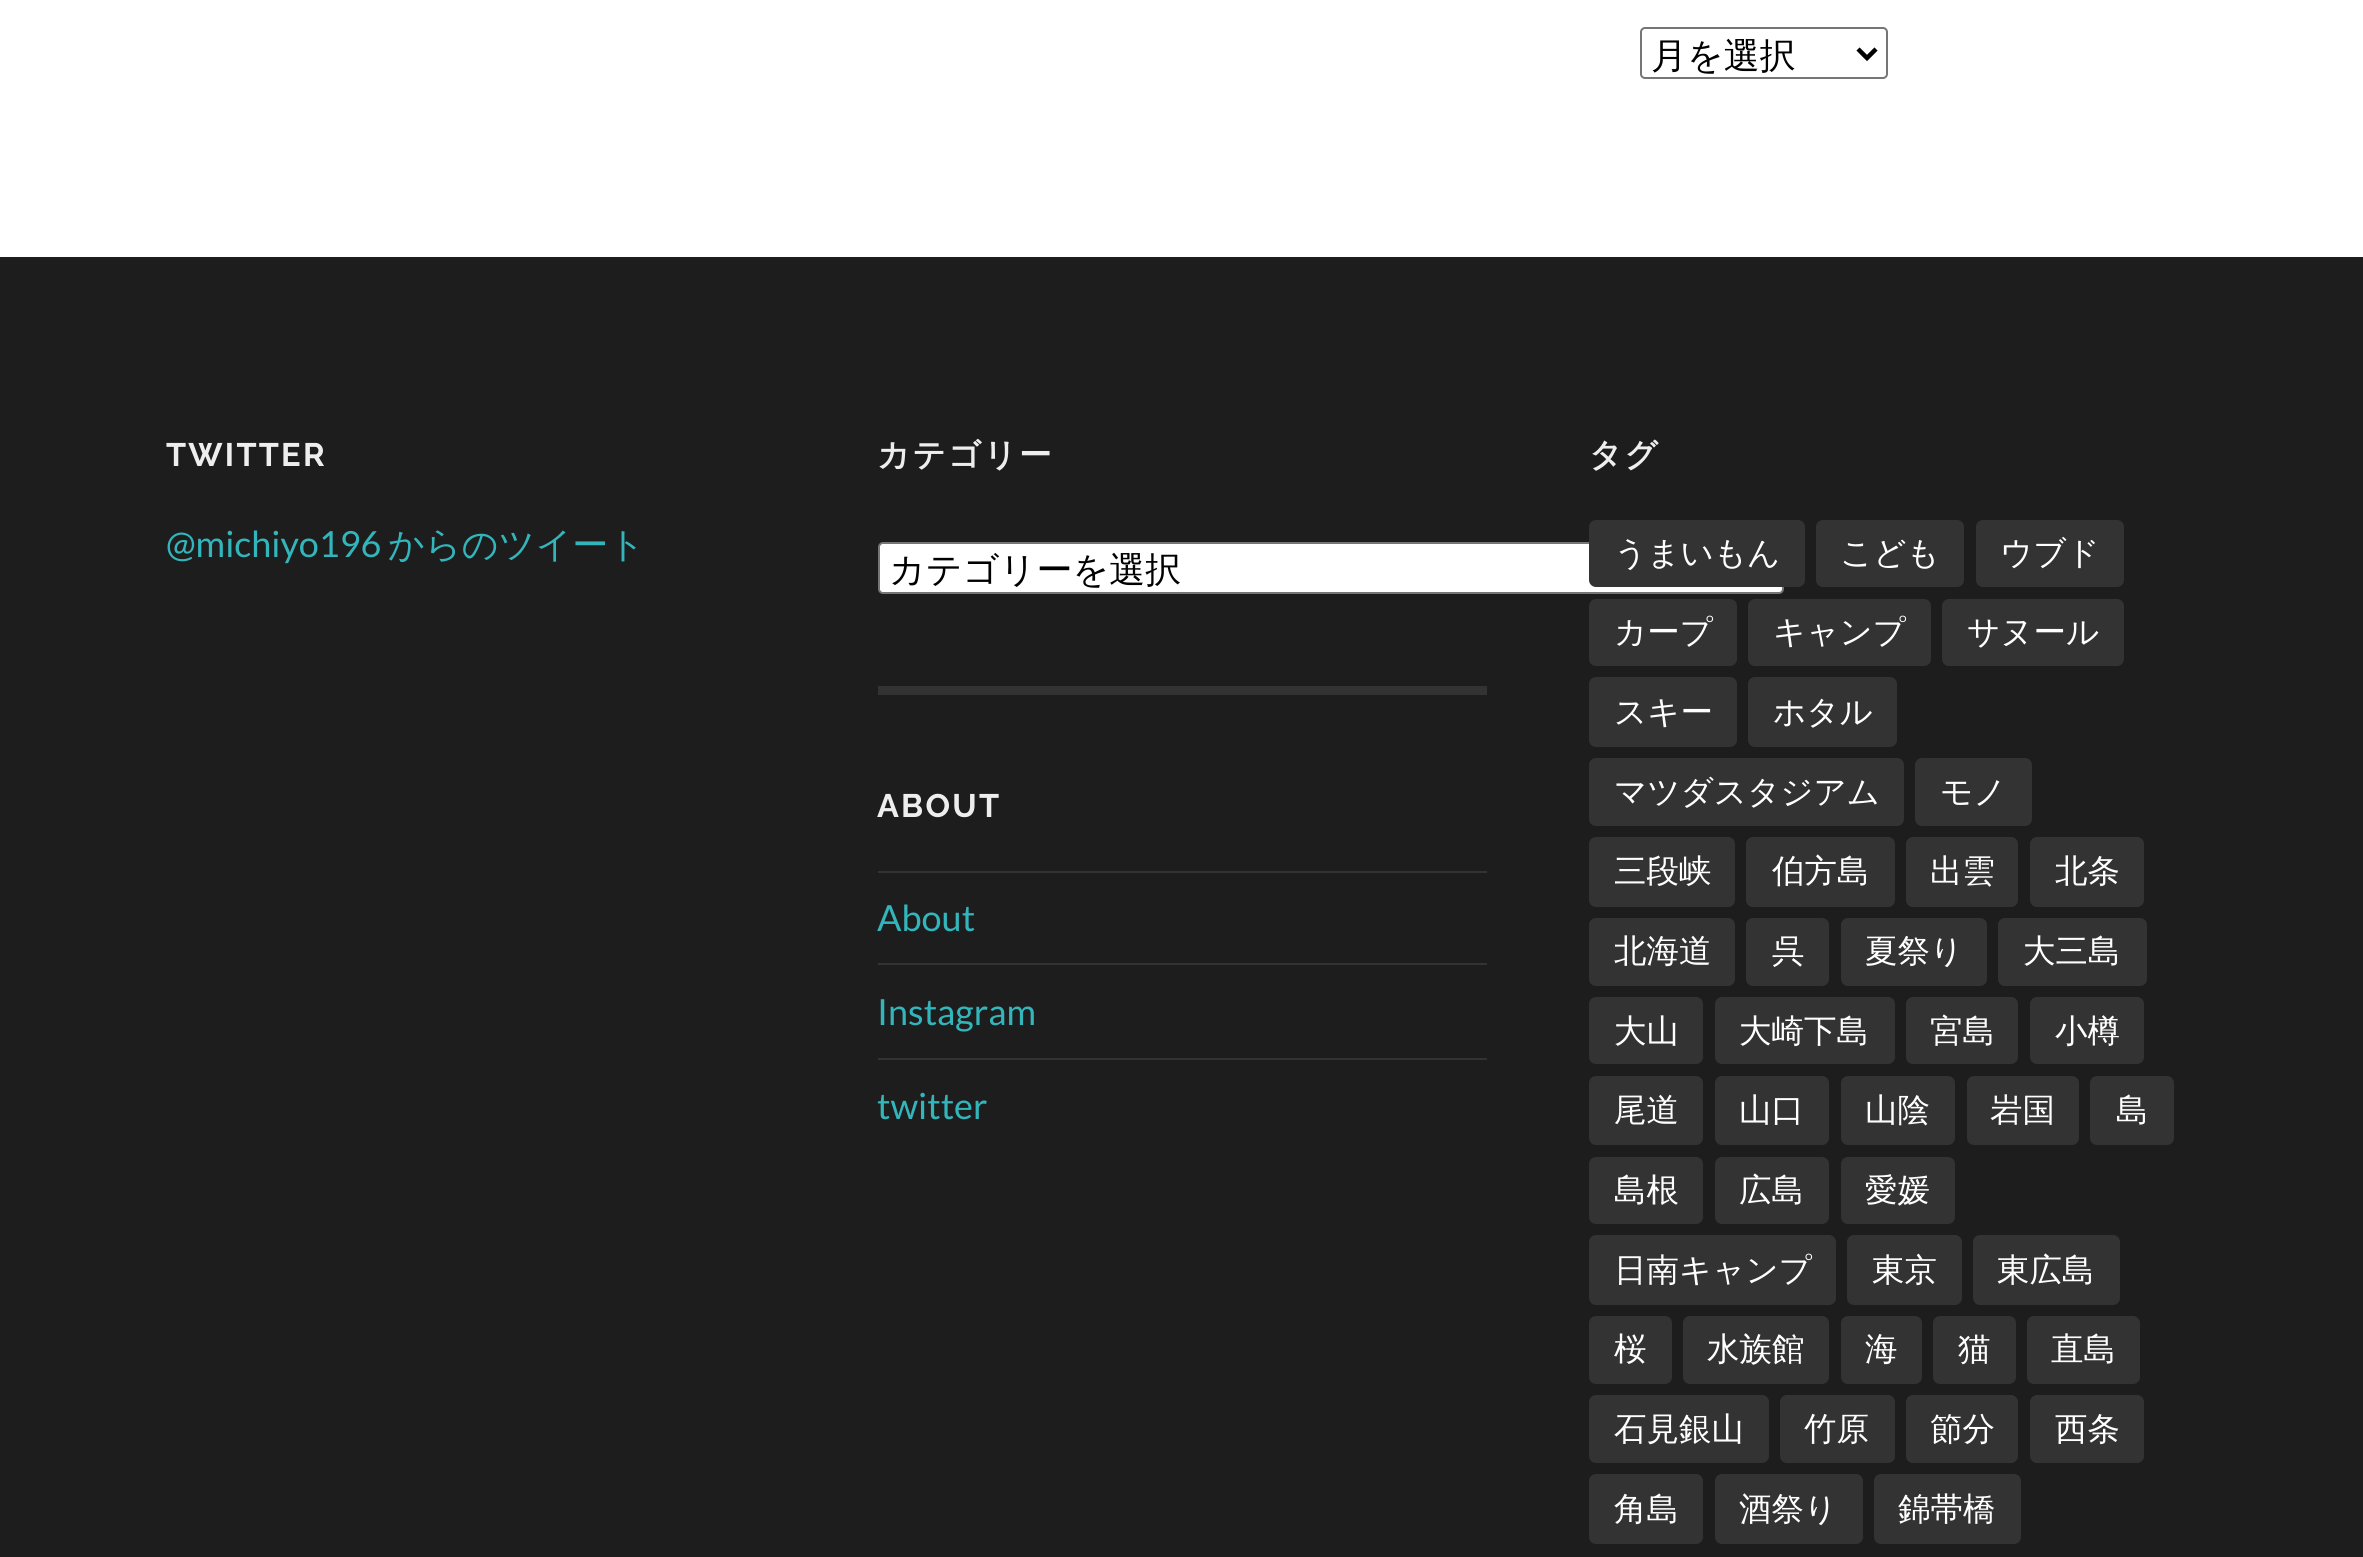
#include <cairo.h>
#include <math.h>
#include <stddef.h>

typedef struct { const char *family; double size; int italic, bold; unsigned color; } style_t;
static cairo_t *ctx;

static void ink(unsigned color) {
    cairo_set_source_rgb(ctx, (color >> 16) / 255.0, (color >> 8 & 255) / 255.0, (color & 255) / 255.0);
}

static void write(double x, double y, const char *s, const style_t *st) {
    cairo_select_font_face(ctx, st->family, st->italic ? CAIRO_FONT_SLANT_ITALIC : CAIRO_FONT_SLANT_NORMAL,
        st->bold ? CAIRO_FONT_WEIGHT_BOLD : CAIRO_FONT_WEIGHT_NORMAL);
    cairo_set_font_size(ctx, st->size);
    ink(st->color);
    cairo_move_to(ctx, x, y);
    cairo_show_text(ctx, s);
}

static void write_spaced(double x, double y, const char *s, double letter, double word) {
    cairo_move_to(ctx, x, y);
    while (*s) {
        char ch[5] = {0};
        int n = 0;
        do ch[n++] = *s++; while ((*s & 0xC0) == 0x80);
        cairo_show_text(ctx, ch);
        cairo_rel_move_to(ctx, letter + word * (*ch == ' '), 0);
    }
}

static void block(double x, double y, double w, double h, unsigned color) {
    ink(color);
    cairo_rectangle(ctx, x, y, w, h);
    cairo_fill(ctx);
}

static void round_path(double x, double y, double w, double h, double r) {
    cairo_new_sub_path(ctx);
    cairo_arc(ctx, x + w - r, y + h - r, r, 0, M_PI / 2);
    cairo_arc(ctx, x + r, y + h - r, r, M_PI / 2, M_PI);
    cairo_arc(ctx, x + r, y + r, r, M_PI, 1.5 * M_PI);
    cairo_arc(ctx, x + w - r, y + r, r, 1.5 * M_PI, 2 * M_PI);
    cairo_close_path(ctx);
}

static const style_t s1 = {"WenQuanYi Zen Hei Medium", 36, 0, 0, 0x000000};
static const style_t s2 = {"Lato", 36, 0, 0, 0x33b5bc};
static const style_t s3 = {"WenQuanYi Zen Hei Medium", 36, 0, 0, 0x33b5bc};
static const style_t s4 = {"WenQuanYi Zen Hei Medium", 32.5, 0, 0, 0xffffff};

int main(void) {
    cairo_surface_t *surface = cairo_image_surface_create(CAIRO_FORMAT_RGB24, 2363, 1557);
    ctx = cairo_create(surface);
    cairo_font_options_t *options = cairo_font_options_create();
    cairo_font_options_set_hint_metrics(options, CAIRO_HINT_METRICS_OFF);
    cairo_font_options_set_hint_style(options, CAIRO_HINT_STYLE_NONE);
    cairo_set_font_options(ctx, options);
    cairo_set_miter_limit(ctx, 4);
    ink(0xffffff);
    cairo_paint(ctx);
    round_path(1641, 28, 246, 50, 4);
    ink(0x767676);
    cairo_stroke(ctx);
    cairo_new_path(ctx);
    cairo_move_to(ctx, 1858, 49);
    cairo_line_to(ctx, 1867, 58);
    cairo_line_to(ctx, 1876, 49);
    ink(0x000000);
    cairo_set_line_width(ctx, 4.5);
    cairo_stroke(ctx);
    write(1651, 68, "月を選択", &s1);
    block(0, 257, 2363, 1300, 0x1d1d1d);
    cairo_select_font_face(ctx, "Raleway", CAIRO_FONT_SLANT_NORMAL, CAIRO_FONT_WEIGHT_BOLD);
    cairo_set_font_size(ctx, 32.5);
    ink(0xeeeeee);
    write_spaced(166, 466, "TWITTER", 2.25, 0);
    write(166, 557, "@michiyo196", &s2);
    write(388, 557, "からのツイート", &s3);
    block(878, 686, 609, 9, 0x333333);
    cairo_select_font_face(ctx, "WenQuanYi Zen Hei", CAIRO_FONT_SLANT_NORMAL, CAIRO_FONT_WEIGHT_BOLD);
    cairo_set_font_size(ctx, 32.5);
    ink(0xeeeeee);
    write_spaced(877, 466, "カテゴリー", 2.25, 0);
    ink(0xffffff);
    round_path(879, 543, 904, 50, 4);
    cairo_fill_preserve(ctx);
    ink(0x767676);
    cairo_set_line_width(ctx, 2);
    cairo_stroke(ctx);
    write(889, 582, "カテゴリーを選択", &s1);
    cairo_select_font_face(ctx, "Raleway", CAIRO_FONT_SLANT_NORMAL, CAIRO_FONT_WEIGHT_BOLD);
    cairo_set_font_size(ctx, 32.5);
    ink(0xeeeeee);
    write_spaced(877, 817, "ABOUT", 2.25, 0);
    block(878, 871, 609, 2, 0x333333);
    write(877, 931, "About", &s2);
    block(878, 963, 609, 2, 0x333333);
    write(877, 1025, "Instagram", &s2);
    block(878, 1058, 609, 2, 0x333333);
    write(877, 1119, "twitter", &s2);
    cairo_select_font_face(ctx, "WenQuanYi Zen Hei", CAIRO_FONT_SLANT_NORMAL, CAIRO_FONT_WEIGHT_BOLD);
    cairo_set_font_size(ctx, 32.5);
    ink(0xeeeeee);
    write_spaced(1589, 466, "タグ", 2.25, 0);
    ink(0x333333);
    round_path(1589, 520, 216, 67, 7);
    cairo_fill(ctx);
    write(1614, 564, "うまいもん", &s4);
    ink(0x333333);
    round_path(1816, 520, 148, 67, 7);
    cairo_fill(ctx);
    write(1840, 564, "こども", &s4);
    ink(0x333333);
    round_path(1976, 520, 148, 67, 7);
    cairo_fill(ctx);
    write(2000, 564, "ウブド", &s4);
    ink(0x333333);
    round_path(1589, 599, 148, 67, 7);
    cairo_fill(ctx);
    write(1614, 643, "カープ", &s4);
    ink(0x333333);
    round_path(1748, 599, 183, 67, 7);
    cairo_fill(ctx);
    write(1773, 643, "キャンプ", &s4);
    ink(0x333333);
    round_path(1942, 599, 182, 67, 7);
    cairo_fill(ctx);
    write(1967, 643, "サヌール", &s4);
    ink(0x333333);
    round_path(1589, 677, 148, 70, 7);
    cairo_fill(ctx);
    write(1614, 723, "スキー", &s4);
    ink(0x333333);
    round_path(1748, 677, 149, 70, 7);
    cairo_fill(ctx);
    write(1773, 723, "ホタル", &s4);
    ink(0x333333);
    round_path(1589, 758, 315, 68, 7);
    cairo_fill(ctx);
    write(1614, 803, "マツダスタジアム", &s4);
    ink(0x333333);
    round_path(1915, 758, 117, 68, 7);
    cairo_fill(ctx);
    write(1940, 803, "モノ", &s4);
    ink(0x333333);
    round_path(1589, 837, 146, 70, 7);
    cairo_fill(ctx);
    write(1614, 882, "三段峡", &s4);
    ink(0x333333);
    round_path(1746, 837, 149, 70, 7);
    cairo_fill(ctx);
    write(1772, 882, "伯方島", &s4);
    ink(0x333333);
    round_path(1906, 837, 112, 70, 7);
    cairo_fill(ctx);
    write(1930, 882, "出雲", &s4);
    ink(0x333333);
    round_path(2030, 837, 114, 70, 7);
    cairo_fill(ctx);
    write(2055, 882, "北条", &s4);
    ink(0x333333);
    round_path(1589, 918, 146, 68, 7);
    cairo_fill(ctx);
    write(1614, 962, "北海道", &s4);
    ink(0x333333);
    round_path(1746, 918, 83, 68, 7);
    cairo_fill(ctx);
    write(1772, 962, "呉", &s4);
    ink(0x333333);
    round_path(1841, 918, 146, 68, 7);
    cairo_fill(ctx);
    write(1865, 962, "夏祭り", &s4);
    ink(0x333333);
    round_path(1998, 918, 149, 68, 7);
    cairo_fill(ctx);
    write(2023, 962, "大三島", &s4);
    ink(0x333333);
    round_path(1589, 997, 114, 67, 7);
    cairo_fill(ctx);
    write(1614, 1042, "大山", &s4);
    ink(0x333333);
    round_path(1715, 997, 180, 67, 7);
    cairo_fill(ctx);
    write(1739, 1042, "大崎下島", &s4);
    ink(0x333333);
    round_path(1906, 997, 112, 67, 7);
    cairo_fill(ctx);
    write(1930, 1042, "宮島", &s4);
    ink(0x333333);
    round_path(2030, 997, 114, 67, 7);
    cairo_fill(ctx);
    write(2055, 1042, "小樽", &s4);
    ink(0x333333);
    round_path(1589, 1076, 114, 69, 7);
    cairo_fill(ctx);
    write(1614, 1121, "尾道", &s4);
    ink(0x333333);
    round_path(1715, 1076, 114, 69, 7);
    cairo_fill(ctx);
    write(1739, 1121, "山口", &s4);
    ink(0x333333);
    round_path(1841, 1076, 114, 69, 7);
    cairo_fill(ctx);
    write(1865, 1121, "山陰", &s4);
    ink(0x333333);
    round_path(1967, 1076, 112, 69, 7);
    cairo_fill(ctx);
    write(1990, 1121, "岩国", &s4);
    ink(0x333333);
    round_path(2090, 1076, 84, 69, 7);
    cairo_fill(ctx);
    write(2116, 1121, "島", &s4);
    ink(0x333333);
    round_path(1589, 1157, 114, 67, 7);
    cairo_fill(ctx);
    write(1614, 1201, "島根", &s4);
    ink(0x333333);
    round_path(1715, 1157, 114, 67, 7);
    cairo_fill(ctx);
    write(1739, 1201, "広島", &s4);
    ink(0x333333);
    round_path(1841, 1157, 114, 67, 7);
    cairo_fill(ctx);
    write(1865, 1201, "愛媛", &s4);
    ink(0x333333);
    round_path(1589, 1235, 247, 70, 7);
    cairo_fill(ctx);
    write(1614, 1281, "日南キャンプ", &s4);
    ink(0x333333);
    round_path(1847, 1235, 115, 70, 7);
    cairo_fill(ctx);
    write(1872, 1281, "東京", &s4);
    ink(0x333333);
    round_path(1973, 1235, 147, 70, 7);
    cairo_fill(ctx);
    write(1997, 1281, "東広島", &s4);
    ink(0x333333);
    round_path(1589, 1316, 83, 68, 7);
    cairo_fill(ctx);
    write(1614, 1360, "桜", &s4);
    ink(0x333333);
    round_path(1683, 1316, 146, 68, 7);
    cairo_fill(ctx);
    write(1707, 1360, "水族館", &s4);
    ink(0x333333);
    round_path(1841, 1316, 81, 68, 7);
    cairo_fill(ctx);
    write(1865, 1360, "海", &s4);
    ink(0x333333);
    round_path(1933, 1316, 83, 68, 7);
    cairo_fill(ctx);
    write(1958, 1360, "猫", &s4);
    ink(0x333333);
    round_path(2027, 1316, 113, 68, 7);
    cairo_fill(ctx);
    write(2051, 1360, "直島", &s4);
    ink(0x333333);
    round_path(1589, 1395, 180, 68, 7);
    cairo_fill(ctx);
    write(1614, 1440, "石見銀山", &s4);
    ink(0x333333);
    round_path(1780, 1395, 115, 68, 7);
    cairo_fill(ctx);
    write(1804, 1440, "竹原", &s4);
    ink(0x333333);
    round_path(1906, 1395, 112, 68, 7);
    cairo_fill(ctx);
    write(1930, 1440, "節分", &s4);
    ink(0x333333);
    round_path(2030, 1395, 114, 68, 7);
    cairo_fill(ctx);
    write(2055, 1440, "西条", &s4);
    ink(0x333333);
    round_path(1589, 1474, 114, 70, 7);
    cairo_fill(ctx);
    write(1614, 1520, "角島", &s4);
    ink(0x333333);
    round_path(1715, 1474, 148, 70, 7);
    cairo_fill(ctx);
    write(1739, 1520, "酒祭り", &s4);
    ink(0x333333);
    round_path(1874, 1474, 147, 70, 7);
    cairo_fill(ctx);
    write(1898, 1520, "錦帯橋", &s4);
    cairo_surface_write_to_png(surface, "screenshot.png");
    cairo_font_options_destroy(options);
    cairo_destroy(ctx);
    cairo_surface_destroy(surface);
    return 0;
}
